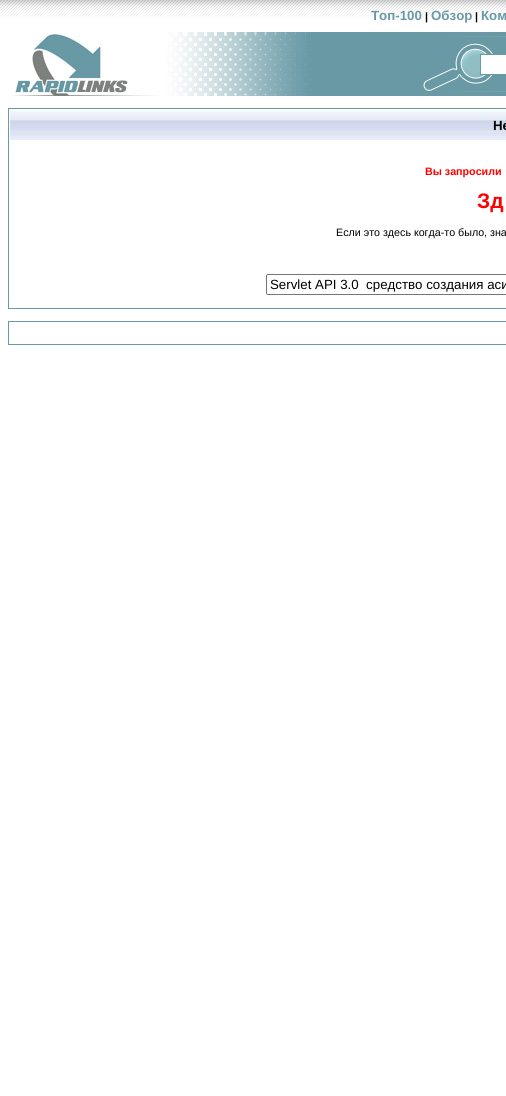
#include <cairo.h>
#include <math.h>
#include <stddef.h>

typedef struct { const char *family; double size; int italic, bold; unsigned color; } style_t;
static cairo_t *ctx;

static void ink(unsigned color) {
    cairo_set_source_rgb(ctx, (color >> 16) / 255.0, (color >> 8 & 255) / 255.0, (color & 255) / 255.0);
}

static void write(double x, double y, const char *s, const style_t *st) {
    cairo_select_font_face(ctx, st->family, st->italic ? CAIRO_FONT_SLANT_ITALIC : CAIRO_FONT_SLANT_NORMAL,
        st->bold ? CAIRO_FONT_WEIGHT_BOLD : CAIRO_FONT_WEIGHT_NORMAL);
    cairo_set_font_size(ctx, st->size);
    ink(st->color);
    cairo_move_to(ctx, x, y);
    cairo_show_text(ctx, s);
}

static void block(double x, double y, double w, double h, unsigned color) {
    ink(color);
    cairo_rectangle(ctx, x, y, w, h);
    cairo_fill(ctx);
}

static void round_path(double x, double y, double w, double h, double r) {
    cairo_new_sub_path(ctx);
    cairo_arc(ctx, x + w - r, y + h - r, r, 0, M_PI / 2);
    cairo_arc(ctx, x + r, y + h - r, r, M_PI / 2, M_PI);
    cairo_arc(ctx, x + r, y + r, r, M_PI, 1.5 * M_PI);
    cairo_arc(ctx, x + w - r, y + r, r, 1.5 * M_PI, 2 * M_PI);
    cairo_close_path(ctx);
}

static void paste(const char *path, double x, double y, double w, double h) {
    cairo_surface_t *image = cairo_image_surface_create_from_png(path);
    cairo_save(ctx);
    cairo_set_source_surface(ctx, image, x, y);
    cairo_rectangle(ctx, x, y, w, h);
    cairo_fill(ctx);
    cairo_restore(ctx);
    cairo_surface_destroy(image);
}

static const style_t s1 = {"Liberation Sans", 13.3, 0, 1, 0x6899a5};
static const style_t s2 = {"Liberation Sans", 10.7, 0, 1, 0x000000};
static const style_t s3 = {"Liberation Sans", 13.3, 0, 1, 0x000000};
static const style_t s4 = {"Liberation Sans", 10.7, 0, 1, 0xff0000};
static const style_t s5 = {"Liberation Sans", 21, 0, 1, 0xff0000};
static const style_t s6 = {"Liberation Sans", 10.7, 0, 0, 0x000000};
static const style_t s7 = {"Liberation Sans", 13.3, 0, 0, 0x000000};

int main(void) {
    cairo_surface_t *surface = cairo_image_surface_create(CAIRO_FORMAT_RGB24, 506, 1096);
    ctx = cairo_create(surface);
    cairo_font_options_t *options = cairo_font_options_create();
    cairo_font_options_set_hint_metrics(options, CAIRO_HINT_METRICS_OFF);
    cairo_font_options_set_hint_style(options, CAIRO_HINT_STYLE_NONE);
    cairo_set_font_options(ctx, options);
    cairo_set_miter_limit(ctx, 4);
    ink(0xffffff);
    cairo_paint(ctx);
    paste("pic1.png", 0, 0, 506, 19);
    write(371, 20, "Топ-100", &s1);
    write(425, 20, "|", &s2);
    write(431, 20, "Обзор", &s1);
    write(475, 20, "|", &s2);
    write(481, 20, "Ком", &s1);
    block(318, 32, 188, 64, 0x6899a5);
    paste("pic2.png", 318, 33, 5, 62);
    paste("pic3.png", 8, 32, 310, 64);
    paste("pic4.png", 423, 36, 83, 56);
    ink(0xffffff);
    cairo_rectangle(ctx, 480.5, 54.5, 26, 20);
    cairo_fill_preserve(ctx);
    ink(0x6899a5);
    cairo_set_line_width(ctx, 1);
    cairo_stroke(ctx);
    cairo_rectangle(ctx, 8.5, 108.5, 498, 200);
    cairo_stroke(ctx);
    paste("pic5.png", 10, 110, 496, 30);
    write(493, 130, "Не", &s3);
    write(425, 175, "Вы запросили", &s4);
    write(477, 208, "Зд", &s5);
    write(336, 236, "Если это здесь когда-то было, зна", &s6);
    round_path(266.5, 274.5, 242, 20, 1.5);
    ink(0x767676);
    cairo_stroke(ctx);
    write(270, 289, "Servlet API 3.0  средство создания аси", &s7);
    cairo_rectangle(ctx, 8.5, 321.5, 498, 23);
    ink(0x6899a5);
    cairo_stroke(ctx);
    cairo_surface_write_to_png(surface, "screenshot.png");
    cairo_font_options_destroy(options);
    cairo_destroy(ctx);
    cairo_surface_destroy(surface);
    return 0;
}
